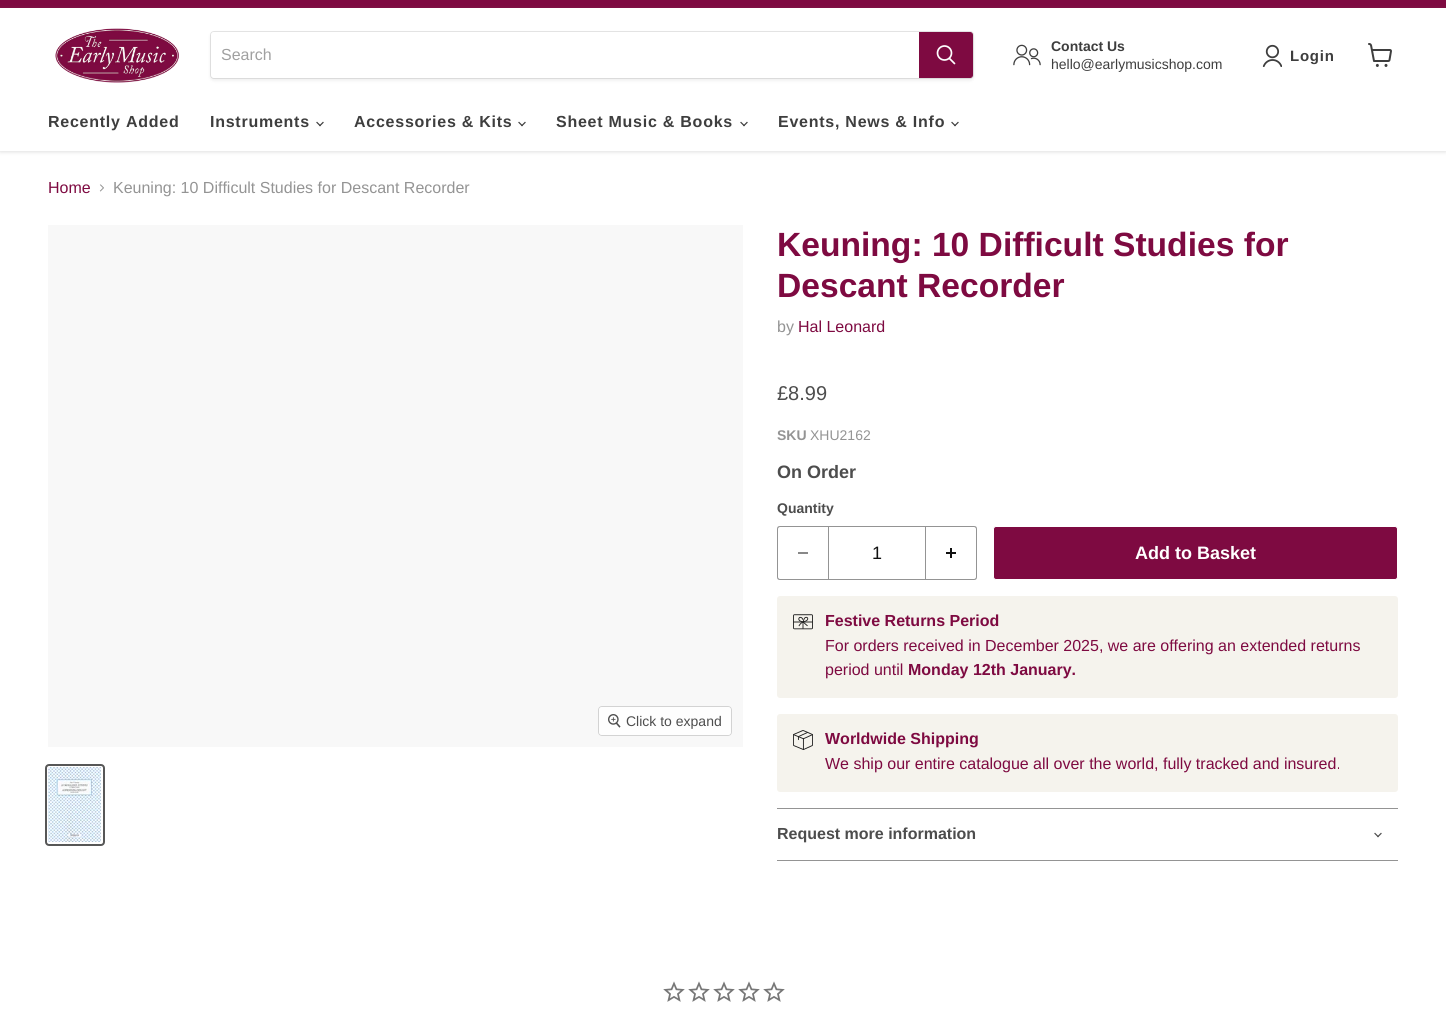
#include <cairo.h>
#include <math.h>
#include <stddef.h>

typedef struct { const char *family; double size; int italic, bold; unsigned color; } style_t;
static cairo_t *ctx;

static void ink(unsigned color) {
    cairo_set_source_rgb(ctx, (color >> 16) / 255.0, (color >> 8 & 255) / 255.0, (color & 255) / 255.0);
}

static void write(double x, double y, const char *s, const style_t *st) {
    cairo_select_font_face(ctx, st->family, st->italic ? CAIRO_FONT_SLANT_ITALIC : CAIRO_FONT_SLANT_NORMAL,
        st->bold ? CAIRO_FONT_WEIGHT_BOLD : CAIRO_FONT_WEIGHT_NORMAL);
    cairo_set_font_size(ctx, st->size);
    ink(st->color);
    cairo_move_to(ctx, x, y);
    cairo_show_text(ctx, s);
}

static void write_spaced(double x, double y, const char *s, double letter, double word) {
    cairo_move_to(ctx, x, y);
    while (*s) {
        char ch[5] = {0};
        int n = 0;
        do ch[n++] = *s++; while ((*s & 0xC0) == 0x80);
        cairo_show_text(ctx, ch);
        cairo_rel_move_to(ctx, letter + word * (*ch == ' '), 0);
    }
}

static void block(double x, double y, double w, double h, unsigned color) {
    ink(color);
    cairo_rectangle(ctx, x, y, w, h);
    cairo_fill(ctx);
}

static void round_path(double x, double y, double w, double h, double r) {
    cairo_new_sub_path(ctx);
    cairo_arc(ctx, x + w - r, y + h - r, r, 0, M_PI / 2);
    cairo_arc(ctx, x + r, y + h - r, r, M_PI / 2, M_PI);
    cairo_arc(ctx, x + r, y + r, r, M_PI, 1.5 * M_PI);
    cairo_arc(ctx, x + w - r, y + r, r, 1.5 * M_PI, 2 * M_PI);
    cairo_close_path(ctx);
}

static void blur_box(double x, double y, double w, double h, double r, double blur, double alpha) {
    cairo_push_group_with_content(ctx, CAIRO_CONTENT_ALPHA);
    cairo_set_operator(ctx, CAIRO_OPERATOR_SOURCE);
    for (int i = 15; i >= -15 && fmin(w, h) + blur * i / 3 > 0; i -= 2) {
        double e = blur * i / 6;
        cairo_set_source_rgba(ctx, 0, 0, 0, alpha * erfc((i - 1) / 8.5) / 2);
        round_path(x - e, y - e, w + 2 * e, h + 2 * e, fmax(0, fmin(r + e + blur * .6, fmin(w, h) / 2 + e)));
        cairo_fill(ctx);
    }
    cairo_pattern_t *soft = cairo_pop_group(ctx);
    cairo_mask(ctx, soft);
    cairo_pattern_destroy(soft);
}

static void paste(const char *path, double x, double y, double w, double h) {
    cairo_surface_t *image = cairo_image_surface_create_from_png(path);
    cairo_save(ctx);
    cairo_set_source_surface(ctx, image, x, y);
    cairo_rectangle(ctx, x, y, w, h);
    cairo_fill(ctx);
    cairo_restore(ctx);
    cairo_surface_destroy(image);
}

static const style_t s1 = {"Liberation Sans", 16, 0, 0, 0xa0a0a0};
static const style_t s2 = {"Liberation Sans", 14, 0, 1, 0x3e3e3e};
static const style_t s3 = {"Liberation Sans", 14, 0, 0, 0x3e3e3e};
static const style_t s4 = {"Liberation Sans", 16, 0, 0, 0x7e0a41};
static const style_t s5 = {"Liberation Sans", 16, 0, 0, 0x949494};
static const style_t s6 = {"Liberation Sans", 14, 0, 0, 0x4d4d4d};
static const style_t s7 = {"Liberation Sans", 33.6, 0, 1, 0x7e0a41};
static const style_t s8 = {"Liberation Sans", 20, 0, 0, 0x4d4d4d};
static const style_t s9 = {"Liberation Sans", 14, 0, 1, 0x949494};
static const style_t s10 = {"Liberation Sans", 14, 0, 0, 0x949494};
static const style_t s11 = {"Liberation Sans", 18, 0, 1, 0x4d4d4d};
static const style_t s12 = {"Liberation Sans", 14, 0, 1, 0x4d4d4d};
static const style_t s13 = {"Liberation Sans", 18, 0, 0, 0x111111};
static const style_t s14 = {"Liberation Sans", 18, 0, 1, 0xffffff};
static const style_t s15 = {"Liberation Sans", 16, 0, 1, 0x7e0a41};
static const style_t s16 = {"Liberation Sans", 16, 0, 1, 0x4d4d4d};

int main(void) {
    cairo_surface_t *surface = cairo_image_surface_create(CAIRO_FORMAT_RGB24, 1446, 1015);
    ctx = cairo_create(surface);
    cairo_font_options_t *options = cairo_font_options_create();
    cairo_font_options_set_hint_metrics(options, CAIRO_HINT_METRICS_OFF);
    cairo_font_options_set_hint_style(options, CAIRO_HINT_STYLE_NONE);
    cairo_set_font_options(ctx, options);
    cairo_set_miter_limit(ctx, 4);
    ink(0xffffff);
    cairo_paint(ctx);
    block(0, 0, 1446, 8, 0x7e0a41);
    cairo_save(ctx);
    cairo_set_fill_rule(ctx, CAIRO_FILL_RULE_EVEN_ODD);
    cairo_new_path(ctx);
    cairo_move_to(ctx, 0, 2);
    cairo_line_to(ctx, 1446, 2);
    cairo_line_to(ctx, 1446, 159);
    cairo_line_to(ctx, 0, 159);
    cairo_close_path(ctx);
    cairo_move_to(ctx, 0, 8);
    cairo_line_to(ctx, 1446, 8);
    cairo_line_to(ctx, 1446, 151);
    cairo_line_to(ctx, 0, 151);
    cairo_close_path(ctx);
    cairo_clip(ctx);
    ink(0x808080);
    blur_box(0, 9, 1446, 143, 0, 2, 0.25);
    cairo_restore(ctx);
    paste("pic1.png", 55, 28, 124, 55);
    ink(0x808080);
    blur_box(210, 33, 764, 48, 4, 1.5, 0.11);
    round_path(210.5, 31.5, 763, 47, 3.5);
    cairo_set_source_rgba(ctx, 0.502, 0.502, 0.502, 0.2);
    cairo_set_line_width(ctx, 1);
    cairo_stroke(ctx);
    ink(0xffffff);
    cairo_new_path(ctx);
    cairo_move_to(ctx, 214, 32);
    cairo_line_to(ctx, 919, 32);
    cairo_line_to(ctx, 919, 78);
    cairo_line_to(ctx, 214, 78);
    cairo_curve_to(ctx, 212.5, 78, 211, 76.5, 211, 75);
    cairo_line_to(ctx, 211, 35);
    cairo_curve_to(ctx, 211, 33.5, 212.5, 32, 214, 32);
    cairo_close_path(ctx);
    cairo_fill(ctx);
    write(221, 60, "Search", &s1);
    ink(0x7e0a41);
    cairo_new_path(ctx);
    cairo_move_to(ctx, 919.5, 32.5);
    cairo_line_to(ctx, 970, 32.5);
    cairo_curve_to(ctx, 971.5, 32.5, 972.5, 33.5, 972.5, 35);
    cairo_line_to(ctx, 972.5, 75);
    cairo_curve_to(ctx, 972.5, 76.5, 971.5, 77.5, 970, 77.5);
    cairo_line_to(ctx, 919.5, 77.5);
    cairo_close_path(ctx);
    cairo_fill_preserve(ctx);
    cairo_stroke(ctx);
    cairo_new_path(ctx);
    cairo_move_to(ctx, 954.5, 63.5);
    cairo_line_to(ctx, 949.5, 58.5);
    ink(0xffffff);
    cairo_set_line_width(ctx, 1.7);
    cairo_set_line_cap(ctx, CAIRO_LINE_CAP_ROUND);
    cairo_stroke(ctx);
    cairo_arc(ctx, 944.5, 53, 7, 0, 2 * M_PI);
    cairo_set_line_cap(ctx, CAIRO_LINE_CAP_BUTT);
    cairo_stroke(ctx);
    paste("pic2.png", 1013, 44, 28, 22);
    write(1051, 51, "Contact Us", &s2);
    write(1051, 69, "hello@earlymusicshop.com", &s3);
    paste("pic3.png", 1262, 44, 20, 23);
    cairo_select_font_face(ctx, "Liberation Sans", CAIRO_FONT_SLANT_NORMAL, CAIRO_FONT_WEIGHT_BOLD);
    cairo_set_font_size(ctx, 15);
    write_spaced(1290, 61, "Login", 0.75, 0);
    paste("pic4.png", 1368, 43, 24, 24);
    cairo_set_font_size(ctx, 16);
    write_spaced(48, 127, "Recently Added", 0.75, 0);
    write_spaced(210, 127, "Instruments", 0.75, 0);
    paste("pic5.png", 316, 121, 8, 6);
    write_spaced(354, 127, "Accessories & Kits", 0.75, 0);
    paste("pic5.png", 518, 121, 8, 6);
    write_spaced(556, 127, "Sheet Music & Books", 0.75, 0);
    paste("pic5.png", 740, 121, 8, 6);
    write_spaced(778, 127, "Events, News & Info", 0.75, 0);
    paste("pic5.png", 951, 121, 8, 6);
    write(48, 193, "Home", &s4);
    paste("pic6.png", 99, 184, 5, 8);
    write(113, 193, "Keuning: 10 Difficult Studies for Descant Recorder", &s5);
    block(48, 225, 695, 522, 0xf8f8f8);
    round_path(598.5, 706.5, 133, 29, 3.5);
    ink(0xd3d3d3);
    cairo_set_line_width(ctx, 1);
    cairo_stroke(ctx);
    cairo_set_source_rgba(ctx, 1, 1, 1, 0.9);
    round_path(599, 707, 132, 28, 3);
    cairo_fill(ctx);
    paste("pic7.png", 608, 714, 13, 14);
    write(626, 726, "Click to expand", &s6);
    round_path(46, 765, 58, 80, 3);
    ink(0x575757);
    cairo_set_line_width(ctx, 2);
    cairo_stroke(ctx);
    paste("pic8.png", 48, 767, 53, 75);
    write(777, 256, "Keuning: 10 Difficult Studies for", &s7);
    write(777, 297, "Descant Recorder", &s7);
    write(777, 332, "by", &s5);
    write(798, 332, "Hal Leonard", &s4);
    write(777, 400, "£8.99", &s8);
    write(777, 440, "SKU", &s9);
    write(810, 440, "XHU2162", &s10);
    write(777, 478, "On Order", &s11);
    write(777, 513, "Quantity", &s12);
    ink(0x949494);
    cairo_set_fill_rule(ctx, CAIRO_FILL_RULE_EVEN_ODD);
    cairo_new_path(ctx);
    cairo_move_to(ctx, 780, 526);
    cairo_line_to(ctx, 828, 526);
    cairo_line_to(ctx, 828, 580);
    cairo_line_to(ctx, 780, 580);
    cairo_curve_to(ctx, 778, 580, 777, 579, 777, 577);
    cairo_line_to(ctx, 777, 529);
    cairo_curve_to(ctx, 777, 527, 778, 526, 780, 526);
    cairo_close_path(ctx);
    cairo_move_to(ctx, 780, 527);
    cairo_line_to(ctx, 828, 527);
    cairo_line_to(ctx, 828, 579);
    cairo_line_to(ctx, 780, 579);
    cairo_curve_to(ctx, 779, 579, 778, 578, 778, 577);
    cairo_line_to(ctx, 778, 529);
    cairo_curve_to(ctx, 778, 528, 779, 527, 780, 527);
    cairo_close_path(ctx);
    cairo_fill(ctx);
    block(798, 552, 10, 2, 0x888888);
    cairo_rectangle(ctx, 828.5, 526.5, 97, 53);
    ink(0x949494);
    cairo_set_line_width(ctx, 1);
    cairo_stroke(ctx);
    write(872, 559, "1", &s13);
    ink(0x949494);
    cairo_new_path(ctx);
    cairo_move_to(ctx, 926, 526);
    cairo_line_to(ctx, 974, 526);
    cairo_curve_to(ctx, 976, 526, 977, 527, 977, 529);
    cairo_line_to(ctx, 977, 577);
    cairo_curve_to(ctx, 977, 579, 976, 580, 974, 580);
    cairo_line_to(ctx, 926, 580);
    cairo_close_path(ctx);
    cairo_move_to(ctx, 926, 527);
    cairo_line_to(ctx, 974, 527);
    cairo_curve_to(ctx, 975, 527, 976, 528, 976, 529);
    cairo_line_to(ctx, 976, 577);
    cairo_curve_to(ctx, 976, 578, 975, 579, 974, 579);
    cairo_line_to(ctx, 926, 579);
    cairo_close_path(ctx);
    cairo_fill(ctx);
    paste("pic9.png", 946, 548, 10, 10);
    ink(0x7e0a41);
    round_path(993.5, 526.5, 404, 53, 2.5);
    cairo_fill_preserve(ctx);
    ink(0xffffff);
    cairo_stroke(ctx);
    write(1135, 559, "Add to Basket", &s14);
    ink(0xf5f3ed);
    round_path(777, 596, 621, 102, 3);
    cairo_fill(ctx);
    paste("pic10.png", 793, 614, 20, 16);
    write(825, 626, "Festive Returns Period", &s15);
    write(825, 651, "For orders received in December 2025, we are offering an extended returns", &s4);
    write(825, 675, "period until", &s4);
    write(908, 675, "Monday 12th January.", &s15);
    ink(0xf5f3ed);
    round_path(777, 714, 621, 78, 3);
    cairo_fill(ctx);
    paste("pic11.png", 793, 730, 20, 20);
    write(825, 744, "Worldwide Shipping", &s15);
    write(825, 769, "We ship our entire catalogue all over the world, fully tracked and insured.", &s4);
    block(777, 808, 621, 1, 0x949494);
    block(777, 860, 621, 1, 0x949494);
    write(777, 839, "Request more information", &s16);
    paste("pic12.png", 1374, 832, 8, 6);
    paste("pic13.png", 663, 981, 22, 21);
    paste("pic13.png", 688, 981, 22, 21);
    paste("pic13.png", 713, 981, 22, 21);
    paste("pic13.png", 738, 981, 22, 21);
    paste("pic13.png", 763, 981, 22, 21);
    cairo_surface_write_to_png(surface, "screenshot.png");
    cairo_font_options_destroy(options);
    cairo_destroy(ctx);
    cairo_surface_destroy(surface);
    return 0;
}
